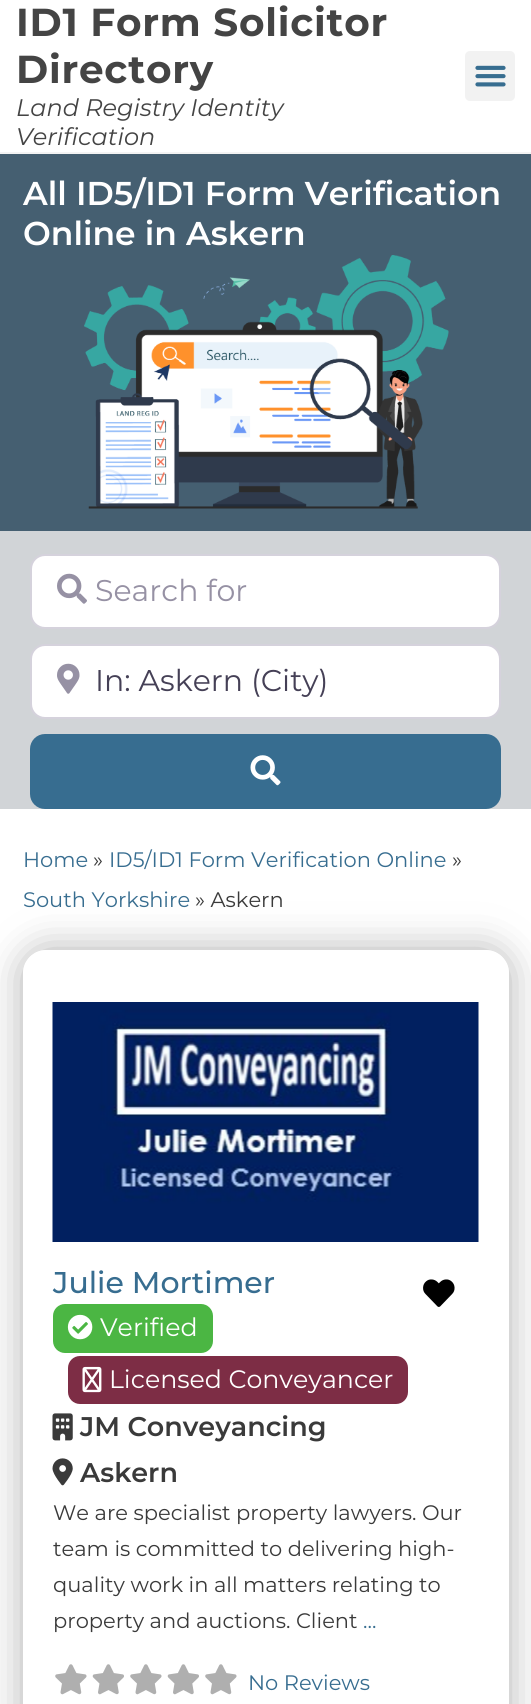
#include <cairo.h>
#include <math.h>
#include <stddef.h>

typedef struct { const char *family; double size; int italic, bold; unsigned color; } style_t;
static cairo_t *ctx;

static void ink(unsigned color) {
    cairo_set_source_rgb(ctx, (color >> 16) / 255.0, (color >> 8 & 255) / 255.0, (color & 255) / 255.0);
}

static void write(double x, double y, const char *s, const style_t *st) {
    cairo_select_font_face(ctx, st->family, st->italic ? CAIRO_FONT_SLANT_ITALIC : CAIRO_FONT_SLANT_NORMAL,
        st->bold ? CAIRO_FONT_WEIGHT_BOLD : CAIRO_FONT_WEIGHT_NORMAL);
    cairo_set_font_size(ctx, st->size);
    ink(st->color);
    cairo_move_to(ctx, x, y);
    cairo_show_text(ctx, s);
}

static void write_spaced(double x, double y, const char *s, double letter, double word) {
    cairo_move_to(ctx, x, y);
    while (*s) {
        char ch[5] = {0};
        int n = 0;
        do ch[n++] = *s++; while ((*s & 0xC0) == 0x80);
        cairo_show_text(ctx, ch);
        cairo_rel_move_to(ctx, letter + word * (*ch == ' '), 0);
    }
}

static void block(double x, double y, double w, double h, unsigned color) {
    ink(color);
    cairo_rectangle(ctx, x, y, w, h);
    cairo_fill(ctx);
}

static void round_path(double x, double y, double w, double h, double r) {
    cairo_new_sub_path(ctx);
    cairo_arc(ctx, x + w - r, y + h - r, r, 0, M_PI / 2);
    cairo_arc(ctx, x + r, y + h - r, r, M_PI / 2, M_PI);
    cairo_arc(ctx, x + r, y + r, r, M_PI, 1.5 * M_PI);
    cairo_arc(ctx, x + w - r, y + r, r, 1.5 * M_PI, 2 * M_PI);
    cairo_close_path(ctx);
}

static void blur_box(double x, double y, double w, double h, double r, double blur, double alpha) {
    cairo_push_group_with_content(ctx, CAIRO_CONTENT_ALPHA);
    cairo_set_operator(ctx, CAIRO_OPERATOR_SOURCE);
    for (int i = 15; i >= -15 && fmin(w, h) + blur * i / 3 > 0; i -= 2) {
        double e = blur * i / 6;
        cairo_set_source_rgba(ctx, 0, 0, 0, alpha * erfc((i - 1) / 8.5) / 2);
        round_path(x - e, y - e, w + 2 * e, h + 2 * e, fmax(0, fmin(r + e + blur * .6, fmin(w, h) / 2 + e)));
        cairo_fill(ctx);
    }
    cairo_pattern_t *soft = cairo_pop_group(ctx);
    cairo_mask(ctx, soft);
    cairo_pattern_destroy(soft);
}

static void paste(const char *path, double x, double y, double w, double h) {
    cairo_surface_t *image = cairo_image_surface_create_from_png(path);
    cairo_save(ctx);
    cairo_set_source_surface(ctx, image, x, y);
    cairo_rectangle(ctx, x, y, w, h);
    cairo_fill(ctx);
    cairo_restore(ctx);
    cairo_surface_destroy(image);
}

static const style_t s1 = {"Montserrat", 24, 1, 0, 0x444444};
static const style_t s2 = {"Montserrat SemiBold", 33, 0, 0, 0xffffff};
static const style_t s3 = {"Montserrat", 30, 0, 0, 0x9691a4};
static const style_t s4 = {"Montserrat", 30, 0, 0, 0x454056};
static const style_t s5 = {"Montserrat", 21, 0, 0, 0x376d90};
static const style_t s6 = {"Montserrat", 21, 0, 0, 0x3a3a3a};
static const style_t s7 = {"Montserrat Medium", 30, 0, 0, 0x376d90};
static const style_t s8 = {"Montserrat", 25.25, 0, 0, 0xffffff};
static const style_t s9 = {"Montserrat SemiBold", 27, 0, 0, 0x3a3a3a};

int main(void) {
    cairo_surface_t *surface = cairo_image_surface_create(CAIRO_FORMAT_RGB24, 531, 1704);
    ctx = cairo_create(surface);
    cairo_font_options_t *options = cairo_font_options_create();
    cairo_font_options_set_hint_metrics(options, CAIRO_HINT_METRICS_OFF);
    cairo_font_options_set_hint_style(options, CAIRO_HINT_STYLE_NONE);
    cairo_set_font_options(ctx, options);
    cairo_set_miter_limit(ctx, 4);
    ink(0xffffff);
    cairo_paint(ctx);
    block(0, 152, 531, 2, 0xf3f3f3);
    cairo_select_font_face(ctx, "Montserrat", CAIRO_FONT_SLANT_NORMAL, CAIRO_FONT_WEIGHT_BOLD);
    cairo_set_font_size(ctx, 39);
    ink(0x444444);
    write_spaced(16, 36, "ID1 Form Solicitor", 0.75, 0);
    write_spaced(16, 83, "Directory", 0.75, 0);
    write(16, 116, "Land Registry Identity", &s1);
    write(16, 145, "Verification", &s1);
    ink(0xf2f2f2);
    round_path(465, 51, 50, 50, 5);
    cairo_fill(ctx);
    paste("pic1.png", 475, 65, 31, 22);
    block(0, 154, 531, 377, 0x455f71);
    write(23, 205, "All ID5/ID1 Form Verification", &s2);
    write(23, 245, "Online in Askern", &s2);
    paste("pic2.png", 84, 255, 365, 254);
    block(0, 531, 531, 278, 0xd1d4d7);
    ink(0xffffff);
    round_path(31, 555, 469, 73, 14);
    cairo_fill_preserve(ctx);
    ink(0xd5d2dc);
    cairo_stroke(ctx);
    paste("pic3.png", 57, 573, 30, 31);
    write(95, 601, "Search for", &s3);
    ink(0xffffff);
    round_path(31, 645, 469, 73, 14);
    cairo_fill_preserve(ctx);
    ink(0xd5d2dc);
    cairo_stroke(ctx);
    paste("pic4.png", 57, 663, 23, 31);
    write(95, 691, "In: Askern (City)", &s4);
    ink(0x376d90);
    round_path(31, 735, 469, 73, 14);
    cairo_fill_preserve(ctx);
    cairo_stroke(ctx);
    paste("pic5.png", 250, 755, 31, 31);
    write(23, 867, "Home", &s5);
    write(93, 867, "»", &s6);
    write(109, 867, "ID5/ID1 Form Verification Online", &s5);
    write(452, 867, "»", &s6);
    write(23, 907, "South Yorkshire", &s5);
    write(195, 907, "» Askern", &s6);
    cairo_save(ctx);
    cairo_set_fill_rule(ctx, CAIRO_FILL_RULE_EVEN_ODD);
    cairo_new_path(ctx);
    cairo_move_to(ctx, 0, 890);
    cairo_line_to(ctx, 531, 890);
    cairo_line_to(ctx, 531, 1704);
    cairo_line_to(ctx, 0, 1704);
    cairo_close_path(ctx);
    cairo_move_to(ctx, 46, 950);
    cairo_line_to(ctx, 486, 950);
    cairo_curve_to(ctx, 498.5, 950, 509, 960.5, 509, 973);
    cairo_line_to(ctx, 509, 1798);
    cairo_curve_to(ctx, 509, 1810.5, 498.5, 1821, 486, 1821);
    cairo_line_to(ctx, 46, 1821);
    cairo_curve_to(ctx, 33.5, 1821, 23, 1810.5, 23, 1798);
    cairo_line_to(ctx, 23, 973);
    cairo_curve_to(ctx, 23, 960.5, 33.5, 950, 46, 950);
    cairo_close_path(ctx);
    cairo_clip(ctx);
    ink(0x5f5f5f);
    blur_box(23, 950, 486, 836, 23, 19.5, 0.5);
    cairo_restore(ctx);
    paste("pic6.png", 52, 1002, 427, 240);
    write(53, 1293, "Julie Mortimer", &s7);
    ink(0x4bb643);
    round_path(53, 1304, 160, 49, 12);
    cairo_fill(ctx);
    paste("pic7.png", 67, 1314, 26, 26);
    write(100, 1336, "Verified", &s8);
    ink(0x7d2d45);
    round_path(68, 1356, 340, 48, 12);
    cairo_fill(ctx);
    paste("pic8.png", 82, 1366, 20, 27);
    write(109, 1388, "Licensed Conveyancer", &s8);
    paste("pic9.png", 423, 1279, 32, 28);
    paste("pic10.png", 52, 1413, 21, 28);
    write(80, 1436, "JM Conveyancing", &s9);
    paste("pic11.png", 52, 1458, 21, 28);
    write(80, 1482, "Askern", &s9);
    write(53, 1520, "We are specialist property lawyers. Our", &s6);
    write(53, 1556, "team is committed to delivering high-", &s6);
    write(53, 1592, "quality work in all matters relating to", &s6);
    write(53, 1628, "property and auctions. Client", &s6);
    write(363, 1628, "...", &s5);
    paste("pic12.png", 55, 1664, 32, 31);
    paste("pic13.png", 92, 1664, 32, 31);
    paste("pic12.png", 130, 1664, 32, 31);
    paste("pic13.png", 167, 1664, 32, 31);
    paste("pic12.png", 205, 1664, 32, 31);
    write(248, 1690, "No Reviews", &s5);
    cairo_surface_write_to_png(surface, "screenshot.png");
    cairo_font_options_destroy(options);
    cairo_destroy(ctx);
    cairo_surface_destroy(surface);
    return 0;
}
